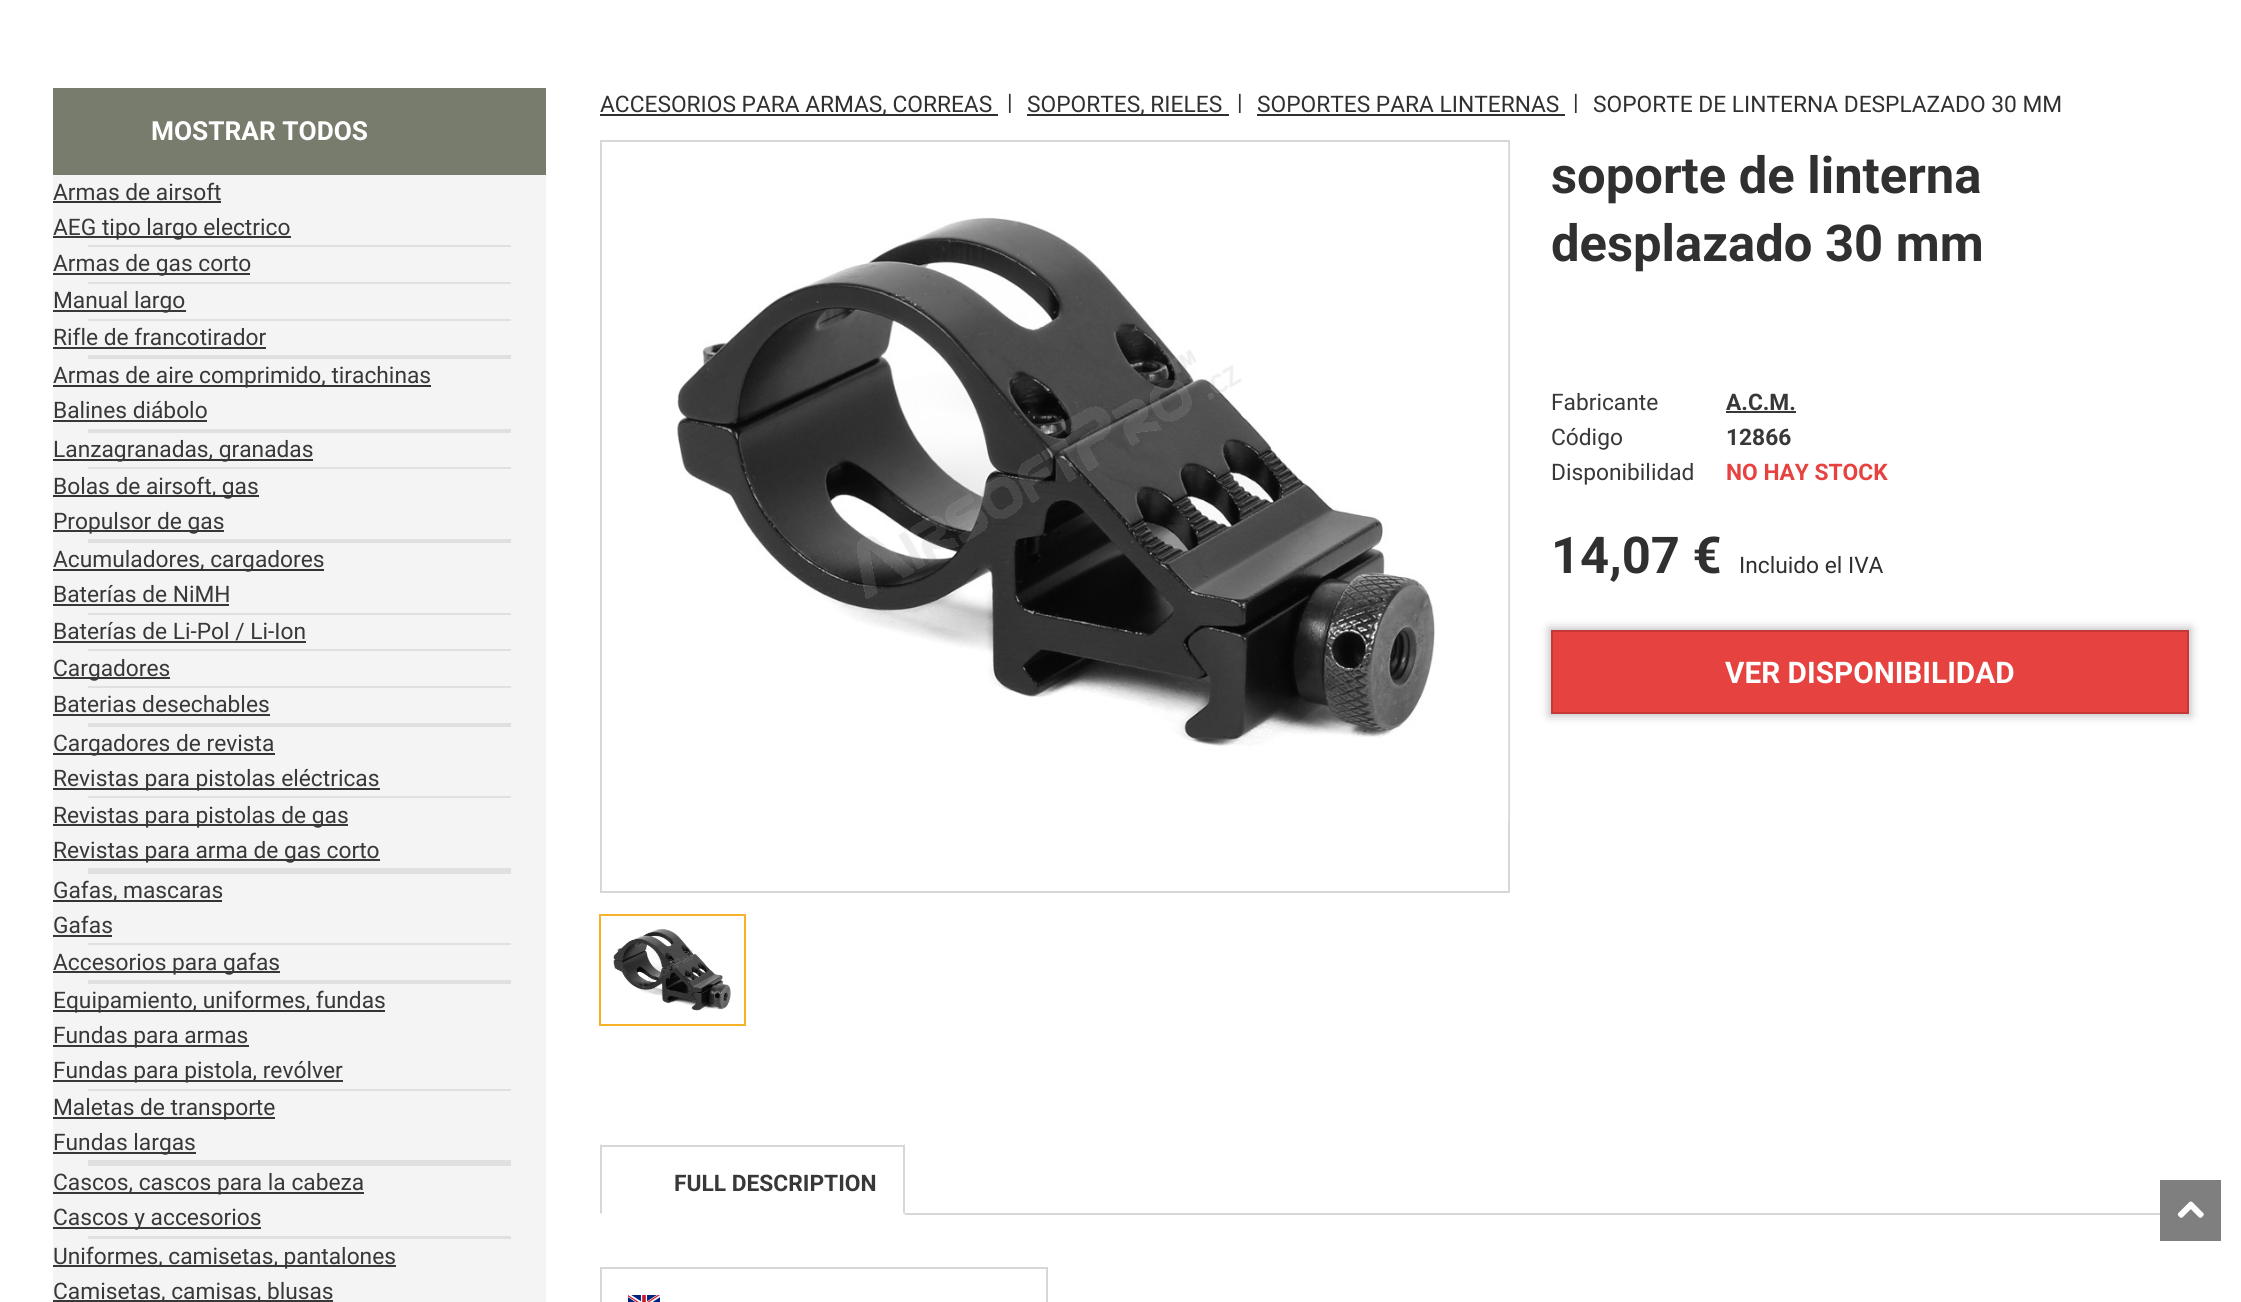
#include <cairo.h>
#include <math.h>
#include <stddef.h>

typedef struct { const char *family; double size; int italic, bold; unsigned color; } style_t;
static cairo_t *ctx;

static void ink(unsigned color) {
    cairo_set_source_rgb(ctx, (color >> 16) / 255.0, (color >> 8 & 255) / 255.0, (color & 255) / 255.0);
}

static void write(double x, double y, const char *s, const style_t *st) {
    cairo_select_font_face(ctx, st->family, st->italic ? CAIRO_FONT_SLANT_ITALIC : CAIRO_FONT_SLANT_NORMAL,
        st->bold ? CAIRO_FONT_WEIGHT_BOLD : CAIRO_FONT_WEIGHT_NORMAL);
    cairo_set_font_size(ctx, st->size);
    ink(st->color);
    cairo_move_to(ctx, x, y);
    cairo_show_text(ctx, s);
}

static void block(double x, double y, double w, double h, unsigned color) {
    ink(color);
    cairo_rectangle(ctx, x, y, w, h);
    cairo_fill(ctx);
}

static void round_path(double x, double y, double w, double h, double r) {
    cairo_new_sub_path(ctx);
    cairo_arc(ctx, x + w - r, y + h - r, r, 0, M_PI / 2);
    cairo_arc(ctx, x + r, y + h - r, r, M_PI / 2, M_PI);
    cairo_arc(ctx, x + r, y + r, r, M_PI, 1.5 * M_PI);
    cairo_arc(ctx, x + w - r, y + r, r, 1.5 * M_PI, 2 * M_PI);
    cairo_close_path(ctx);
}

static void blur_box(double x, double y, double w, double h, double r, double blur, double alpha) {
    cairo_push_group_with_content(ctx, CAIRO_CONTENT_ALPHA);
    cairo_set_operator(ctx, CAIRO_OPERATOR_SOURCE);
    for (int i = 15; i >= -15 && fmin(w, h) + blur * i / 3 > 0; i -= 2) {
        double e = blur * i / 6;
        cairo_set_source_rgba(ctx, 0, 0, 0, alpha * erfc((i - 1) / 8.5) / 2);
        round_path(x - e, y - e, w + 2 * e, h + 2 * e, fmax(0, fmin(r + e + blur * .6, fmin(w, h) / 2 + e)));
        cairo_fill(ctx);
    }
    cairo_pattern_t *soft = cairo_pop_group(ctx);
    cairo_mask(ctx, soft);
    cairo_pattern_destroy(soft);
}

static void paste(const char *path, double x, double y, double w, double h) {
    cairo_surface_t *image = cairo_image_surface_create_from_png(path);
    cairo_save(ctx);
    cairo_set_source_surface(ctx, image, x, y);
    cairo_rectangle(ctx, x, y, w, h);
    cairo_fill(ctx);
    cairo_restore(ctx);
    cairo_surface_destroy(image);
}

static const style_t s1 = {"Roboto", 26.25, 0, 1, 0xffffff};
static const style_t s2 = {"Roboto", 22.75, 0, 0, 0x383838};
static const style_t s3 = {"Roboto", 22.75, 0, 0, 0x303030};
static const style_t s4 = {"Roboto", 50.75, 0, 1, 0x303030};
static const style_t s5 = {"Roboto", 22.75, 0, 1, 0x383838};
static const style_t s6 = {"Roboto", 22.75, 0, 1, 0xe64240};
static const style_t s7 = {"Roboto", 29.75, 0, 1, 0xffffff};

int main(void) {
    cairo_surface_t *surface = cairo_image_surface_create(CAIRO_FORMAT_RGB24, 2241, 1302);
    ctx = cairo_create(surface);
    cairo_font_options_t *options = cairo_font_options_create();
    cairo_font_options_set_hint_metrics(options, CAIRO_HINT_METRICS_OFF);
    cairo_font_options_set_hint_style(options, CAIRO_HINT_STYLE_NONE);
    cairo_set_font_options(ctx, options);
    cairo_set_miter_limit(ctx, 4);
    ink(0xffffff);
    cairo_paint(ctx);
    block(53, 88, 493, 87, 0x787c6c);
    write(151, 140, "MOSTRAR TODOS", &s1);
    block(53, 175, 493, 1127, 0xf4f4f4);
    write(53, 200, "Armas de airsoft", &s2);
    block(53, 201, 168, 2, 0x333333);
    block(53, 236, 238, 2, 0x383838);
    write(53, 235, "AEG tipo largo electrico", &s2);
    block(88, 245, 423, 2, 0xe0e0e0);
    block(53, 273, 197, 2, 0x383838);
    write(53, 271, "Armas de gas corto", &s2);
    block(88, 282, 423, 2, 0xe0e0e0);
    block(53, 310, 133, 2, 0x383838);
    write(53, 308, "Manual largo", &s2);
    block(88, 319, 423, 2, 0xe0e0e0);
    write(53, 345, "Rifle de francotirador", &s2);
    block(53, 347, 213, 2, 0x383838);
    block(88, 355, 423, 4, 0xe0e0e0);
    block(53, 385, 378, 2, 0x333333);
    write(53, 383, "Armas de aire comprimido, tirachinas", &s2);
    write(53, 418, "Balines diábolo", &s2);
    block(53, 420, 154, 2, 0x383838);
    block(88, 429, 423, 4, 0xe0e0e0);
    block(53, 459, 260, 2, 0x333333);
    write(53, 457, "Lanzagranadas, granadas", &s2);
    block(88, 467, 423, 2, 0xe0e0e0);
    block(53, 495, 206, 2, 0x333333);
    write(53, 494, "Bolas de airsoft, gas", &s2);
    block(53, 530, 171, 2, 0x383838);
    write(53, 529, "Propulsor de gas", &s2);
    block(88, 539, 423, 4, 0xe0e0e0);
    block(53, 569, 271, 2, 0x333333);
    write(53, 567, "Acumuladores, cargadores", &s2);
    write(53, 602, "Baterías de NiMH", &s2);
    block(53, 604, 176, 2, 0x383838);
    block(88, 613, 423, 2, 0xe0e0e0);
    write(53, 639, "Baterías de Li-Pol / Li-Ion", &s2);
    block(53, 641, 253, 2, 0x383838);
    block(88, 649, 423, 2, 0xe0e0e0);
    block(53, 677, 117, 2, 0x383838);
    write(53, 676, "Cargadores", &s2);
    block(88, 686, 423, 2, 0xe0e0e0);
    write(53, 712, "Baterias desechables", &s2);
    block(53, 714, 217, 2, 0x383838);
    block(88, 723, 423, 4, 0xe0e0e0);
    block(53, 753, 222, 2, 0x333333);
    write(53, 751, "Cargadores de revista", &s2);
    block(53, 788, 327, 2, 0x383838);
    write(53, 786, "Revistas para pistolas eléctricas", &s2);
    block(88, 796, 423, 2, 0xe0e0e0);
    block(53, 824, 295, 2, 0x383838);
    write(53, 823, "Revistas para pistolas de gas", &s2);
    block(53, 859, 327, 2, 0x383838);
    write(53, 858, "Revistas para arma de gas corto", &s2);
    block(88, 868, 423, 6, 0xe0e0e0);
    block(53, 900, 169, 2, 0x333333);
    write(53, 898, "Gafas, mascaras", &s2);
    write(53, 933, "Gafas", &s2);
    block(53, 935, 59, 2, 0x383838);
    block(88, 943, 423, 2, 0xe0e0e0);
    block(53, 971, 227, 2, 0x383838);
    write(53, 970, "Accesorios para gafas", &s2);
    block(88, 980, 423, 4, 0xe0e0e0);
    block(53, 1010, 332, 2, 0x333333);
    write(53, 1008, "Equipamiento, uniformes, fundas", &s2);
    block(53, 1045, 196, 2, 0x383838);
    write(53, 1043, "Fundas para armas", &s2);
    block(53, 1080, 290, 2, 0x383838);
    write(53, 1078, "Fundas para pistola, revólver", &s2);
    block(88, 1089, 423, 2, 0xe0e0e0);
    block(53, 1117, 222, 2, 0x383838);
    write(53, 1115, "Maletas de transporte", &s2);
    block(53, 1152, 143, 2, 0x383838);
    write(53, 1150, "Fundas largas", &s2);
    block(88, 1160, 423, 6, 0xe0e0e0);
    block(53, 1192, 311, 2, 0x383838);
    write(53, 1190, "Cascos, cascos para la cabeza", &s2);
    block(53, 1227, 208, 2, 0x383838);
    write(53, 1225, "Cascos y accesorios", &s2);
    block(88, 1236, 423, 3, 0xe0e0e0);
    block(53, 1265, 343, 2, 0x383838);
    write(53, 1264, "Uniformes, camisetas, pantalones", &s2);
    block(53, 1300, 280, 2, 0x383838);
    write(53, 1299, "Camisetas, camisas, blusas", &s2);
    block(600, 114, 398, 2, 0x2f2f2f);
    write(600, 112, "ACCESORIOS PARA ARMAS, CORREAS", &s3);
    write(1007, 110, "|", &s3);
    block(1027, 114, 202, 2, 0x2f2f2f);
    write(1027, 112, "SOPORTES, RIELES", &s3);
    write(1237, 110, "|", &s3);
    write(1257, 112, "SOPORTES PARA LINTERNAS", &s3);
    block(1257, 114, 308, 2, 0x2f2f2f);
    write(1573, 110, "|", &s3);
    write(1593, 112, "SOPORTE DE LINTERNA DESPLAZADO 30 MM", &s3);
    cairo_rectangle(ctx, 601, 141, 908, 751);
    ink(0xd7d7d7);
    cairo_stroke(ctx);
    paste("pic1.png", 677, 142, 832, 679);
    cairo_rectangle(ctx, 600, 915, 145, 110);
    ink(0xf7b12b);
    cairo_stroke(ctx);
    paste("pic2.png", 613, 929, 118, 82);
    write(1551, 193, "soporte de linterna", &s4);
    write(1551, 261, "desplazado 30 mm", &s4);
    write(1551, 410, "Fabricante", &s2);
    write(1726, 410, "A.C.M.", &s5);
    block(1726, 411, 70, 2, 0x383838);
    write(1551, 445, "Código", &s2);
    write(1726, 445, "12866", &s5);
    write(1551, 480, "Disponibilidad", &s2);
    write(1726, 480, "NO HAY STOCK", &s6);
    write(1551, 573, "14,07 €", &s4);
    write(1739, 573, "Incluido el IVA", &s3);
    ink(0x000000);
    blur_box(1549, 628, 642, 88, 0, 4.5, 0.25);
    ink(0xe64240);
    cairo_rectangle(ctx, 1552, 631, 636, 82);
    cairo_fill_preserve(ctx);
    ink(0xc43937);
    cairo_stroke(ctx);
    write(1725, 683, "VER DISPONIBILIDAD", &s7);
    block(600, 1145, 305, 2, 0xd7d7d7);
    cairo_new_path(ctx);
    cairo_move_to(ctx, 905, 1144);
    cairo_line_to(ctx, 905, 1214);
    cairo_line_to(ctx, 903, 1213);
    cairo_line_to(ctx, 903, 1146);
    cairo_close_path(ctx);
    cairo_fill(ctx);
    cairo_new_path(ctx);
    cairo_move_to(ctx, 600, 1214);
    cairo_line_to(ctx, 600, 1144);
    cairo_line_to(ctx, 602, 1146);
    cairo_line_to(ctx, 602, 1213);
    cairo_close_path(ctx);
    cairo_fill(ctx);
    write(674, 1191, "FULL DESCRIPTION", &s5);
    block(905, 1213, 1255, 2, 0xd7d7d7);
    cairo_rectangle(ctx, 601, 1268, 446, 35);
    cairo_stroke(ctx);
    block(628, 1295, 32, 7, 0x00247d);
    cairo_save(ctx);
    cairo_rectangle(ctx, 628, 1295, 32, 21);
    cairo_clip(ctx);
    cairo_new_path(ctx);
    cairo_move_to(ctx, 628, 1295);
    cairo_line_to(ctx, 660, 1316);
    cairo_move_to(ctx, 660, 1295);
    cairo_line_to(ctx, 628, 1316);
    ink(0xffffff);
    cairo_set_line_width(ctx, 3.6);
    cairo_stroke(ctx);
    cairo_restore(ctx);
    cairo_save(ctx);
    cairo_new_path(ctx);
    cairo_move_to(ctx, 644, 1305.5);
    cairo_line_to(ctx, 660, 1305.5);
    cairo_line_to(ctx, 660, 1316);
    cairo_close_path(ctx);
    cairo_move_to(ctx, 644, 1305.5);
    cairo_line_to(ctx, 644, 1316);
    cairo_line_to(ctx, 628, 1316);
    cairo_close_path(ctx);
    cairo_move_to(ctx, 644, 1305.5);
    cairo_line_to(ctx, 628, 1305.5);
    cairo_line_to(ctx, 628, 1295);
    cairo_close_path(ctx);
    cairo_move_to(ctx, 644, 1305.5);
    cairo_line_to(ctx, 644, 1295);
    cairo_line_to(ctx, 660, 1295);
    cairo_close_path(ctx);
    cairo_clip(ctx);
    cairo_new_path(ctx);
    cairo_move_to(ctx, 628, 1295);
    cairo_line_to(ctx, 660, 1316);
    cairo_move_to(ctx, 660, 1295);
    cairo_line_to(ctx, 628, 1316);
    ink(0xcf142b);
    cairo_set_line_width(ctx, 2.4);
    cairo_stroke(ctx);
    cairo_restore(ctx);
    cairo_new_path(ctx);
    cairo_move_to(ctx, 644, 1295);
    cairo_line_to(ctx, 644, 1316);
    cairo_move_to(ctx, 628, 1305.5);
    cairo_line_to(ctx, 660, 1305.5);
    ink(0xffffff);
    cairo_set_line_width(ctx, 6.1);
    cairo_stroke(ctx);
    cairo_new_path(ctx);
    cairo_move_to(ctx, 644, 1295);
    cairo_line_to(ctx, 644, 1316);
    cairo_move_to(ctx, 628, 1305.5);
    cairo_line_to(ctx, 660, 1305.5);
    ink(0xcf142b);
    cairo_set_line_width(ctx, 3.6);
    cairo_stroke(ctx);
    block(2160, 1180, 61, 61, 0x7f7f7f);
    paste("pic3.png", 2177, 1201, 27, 17);
    cairo_surface_write_to_png(surface, "screenshot.png");
    cairo_font_options_destroy(options);
    cairo_destroy(ctx);
    cairo_surface_destroy(surface);
    return 0;
}
